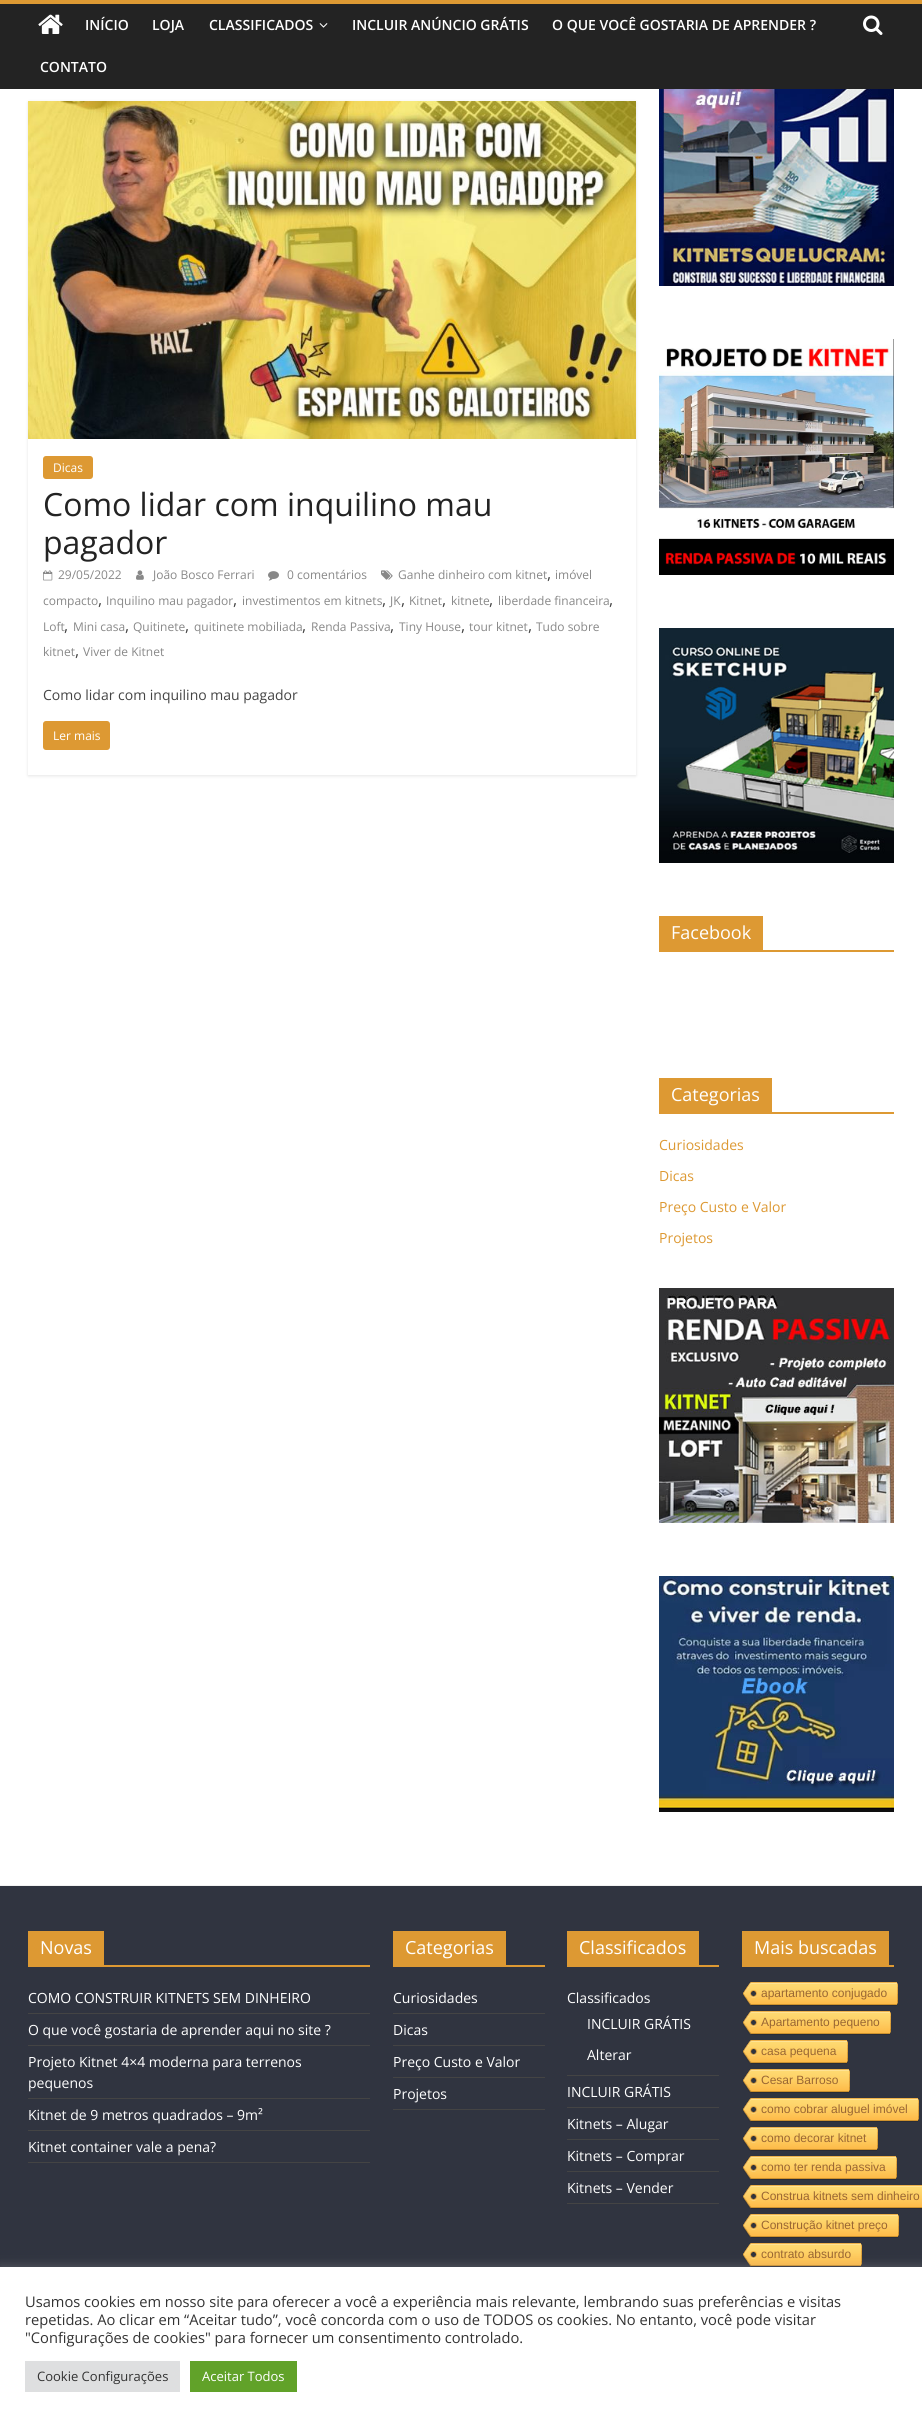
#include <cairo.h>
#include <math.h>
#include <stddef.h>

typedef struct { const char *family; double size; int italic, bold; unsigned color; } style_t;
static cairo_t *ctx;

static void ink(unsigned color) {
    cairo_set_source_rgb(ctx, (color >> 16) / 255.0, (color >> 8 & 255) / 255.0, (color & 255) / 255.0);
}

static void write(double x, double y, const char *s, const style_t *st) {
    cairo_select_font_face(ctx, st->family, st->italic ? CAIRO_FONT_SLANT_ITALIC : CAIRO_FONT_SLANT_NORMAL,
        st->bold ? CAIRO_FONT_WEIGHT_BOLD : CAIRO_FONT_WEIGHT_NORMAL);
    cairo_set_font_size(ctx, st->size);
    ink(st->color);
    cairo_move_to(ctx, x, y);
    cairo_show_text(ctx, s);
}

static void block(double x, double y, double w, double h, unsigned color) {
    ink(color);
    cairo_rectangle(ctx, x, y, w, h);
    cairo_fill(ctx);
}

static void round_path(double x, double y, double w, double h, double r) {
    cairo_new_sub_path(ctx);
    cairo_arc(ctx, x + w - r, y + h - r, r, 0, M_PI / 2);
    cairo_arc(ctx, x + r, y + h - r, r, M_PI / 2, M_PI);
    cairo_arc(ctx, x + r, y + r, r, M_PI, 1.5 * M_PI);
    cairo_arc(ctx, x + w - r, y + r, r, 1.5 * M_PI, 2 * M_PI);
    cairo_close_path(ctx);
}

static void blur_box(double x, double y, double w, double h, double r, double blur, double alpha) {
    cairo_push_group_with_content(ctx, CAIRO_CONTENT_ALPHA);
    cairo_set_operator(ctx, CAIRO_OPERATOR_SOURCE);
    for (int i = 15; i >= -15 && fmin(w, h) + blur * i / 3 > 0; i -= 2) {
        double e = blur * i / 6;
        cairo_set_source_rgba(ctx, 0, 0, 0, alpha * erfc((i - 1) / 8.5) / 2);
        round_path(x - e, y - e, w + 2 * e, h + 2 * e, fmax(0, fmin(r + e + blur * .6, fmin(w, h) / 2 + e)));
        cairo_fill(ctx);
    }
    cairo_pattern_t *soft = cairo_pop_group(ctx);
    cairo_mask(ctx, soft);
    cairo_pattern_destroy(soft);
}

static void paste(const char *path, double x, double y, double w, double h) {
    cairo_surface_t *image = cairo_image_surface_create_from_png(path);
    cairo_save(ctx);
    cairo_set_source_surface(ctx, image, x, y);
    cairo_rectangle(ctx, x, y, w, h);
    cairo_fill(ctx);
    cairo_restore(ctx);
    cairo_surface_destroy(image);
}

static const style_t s1 = {"Open Sans SemiBold", 14, 0, 0, 0xffffff};
static const style_t s2 = {"Open Sans", 12, 0, 0, 0xffffff};
static const style_t s3 = {"Open Sans", 32, 0, 0, 0x232323};
static const style_t s4 = {"Open Sans", 12, 0, 0, 0x888888};
static const style_t s5 = {"Open Sans", 16, 0, 0, 0x444444};
static const style_t s6 = {"Open Sans", 14, 0, 0, 0x444444};
static const style_t s7 = {"Open Sans", 18, 0, 0, 0xffffff};
static const style_t s8 = {"Open Sans", 14, 0, 0, 0xdd9933};
static const style_t s9 = {"Open Sans", 14, 0, 0, 0xffffff};
static const style_t s10 = {"Liberation Sans", 12, 0, 0, 0x996633};
static const style_t s11 = {"Open Sans", 14.67, 0, 0, 0x333333};
static const style_t s12 = {"Open Sans", 13, 0, 0, 0x333333};
static const style_t s13 = {"Open Sans", 13, 0, 0, 0xffffff};

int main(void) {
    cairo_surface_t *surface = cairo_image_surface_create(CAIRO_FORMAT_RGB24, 922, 2422);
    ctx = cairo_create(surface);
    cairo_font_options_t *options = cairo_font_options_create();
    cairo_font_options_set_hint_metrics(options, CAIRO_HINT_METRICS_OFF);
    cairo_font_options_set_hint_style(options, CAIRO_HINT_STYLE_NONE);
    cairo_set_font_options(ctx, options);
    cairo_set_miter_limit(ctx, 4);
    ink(0xffffff);
    cairo_paint(ctx);
    block(0, 4, 922, 85, 0x232323);
    block(0, 0, 922, 4, 0xdd9933);
    paste("pic1.png", 38, 14, 25, 20);
    paste("pic2.png", 863, 15, 20, 20);
    write(85, 30, "INÍCIO", &s1);
    write(152, 30, "LOJA", &s1);
    write(209, 30, "CLASSIFICADOS", &s1);
    paste("pic3.png", 319, 23, 9, 5);
    write(352, 30, "INCLUIR ANÚNCIO GRÁTIS", &s1);
    write(552, 30, "O QUE VOCÊ GOSTARIA DE APRENDER ?", &s1);
    write(40, 72, "CONTATO", &s1);
    cairo_save(ctx);
    cairo_set_fill_rule(ctx, CAIRO_FILL_RULE_EVEN_ODD);
    cairo_new_path(ctx);
    cairo_move_to(ctx, 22, 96);
    cairo_line_to(ctx, 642, 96);
    cairo_line_to(ctx, 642, 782);
    cairo_line_to(ctx, 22, 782);
    cairo_close_path(ctx);
    cairo_move_to(ctx, 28, 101);
    cairo_line_to(ctx, 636, 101);
    cairo_line_to(ctx, 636, 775);
    cairo_line_to(ctx, 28, 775);
    cairo_close_path(ctx);
    cairo_clip(ctx);
    ink(0x000000);
    blur_box(28, 102, 608, 674, 0, 1.5, 0.1);
    cairo_restore(ctx);
    paste("pic4.png", 28, 101, 608, 338);
    ink(0xdd9933);
    round_path(43, 456, 50, 23, 3);
    cairo_fill(ctx);
    write(53, 472, "Dicas", &s2);
    write(43, 516, "Como lidar com inquilino mau", &s3);
    write(43, 554, "pagador", &s3);
    paste("pic5.png", 381, 570, 12, 10);
    write(398, 579, "Ganhe dinheiro com kitnet", &s4);
    write(547, 579, ",", &s5);
    write(555, 579, "imóvel", &s4);
    write(43, 605, "compacto", &s4);
    write(98, 605, ",", &s5);
    write(106, 605, "Inquilino mau pagador", &s4);
    write(233, 605, ",", &s5);
    write(242, 605, "investimentos em kitnets", &s4);
    write(382, 605, ",", &s5);
    write(390, 605, "JK", &s4);
    write(401, 605, ",", &s5);
    write(409, 605, "Kitnet", &s4);
    write(442, 605, ",", &s5);
    write(451, 605, "kitnete", &s4);
    write(489, 605, ",", &s5);
    write(498, 605, "liberdade financeira", &s4);
    write(609, 605, ",", &s5);
    write(43, 631, "Loft", &s4);
    write(64, 631, ",", &s5);
    write(73, 631, "Mini casa", &s4);
    write(125, 631, ",", &s5);
    write(133, 631, "Quitinete", &s4);
    write(185, 631, ",", &s5);
    write(194, 631, "quitinete mobiliada", &s4);
    write(302, 631, ",", &s5);
    write(311, 631, "Renda Passiva", &s4);
    write(390, 631, ",", &s5);
    write(399, 631, "Tiny House", &s4);
    write(461, 631, ",", &s5);
    write(469, 631, "tour kitnet", &s4);
    write(528, 631, ",", &s5);
    write(536, 631, "Tudo sobre", &s4);
    write(43, 656, "kitnet", &s4);
    write(75, 656, ",", &s5);
    write(83, 656, "Viver de Kitnet", &s4);
    paste("pic6.png", 43, 570, 10, 11);
    write(58, 579, "29/05/2022", &s4);
    paste("pic7.png", 136, 570, 8, 10);
    write(153, 579, "João Bosco Ferrari", &s4);
    paste("pic8.png", 268, 571, 11, 10);
    write(287, 579, "0 comentários", &s4);
    write(43, 700, "Como lidar com inquilino mau pagador", &s6);
    ink(0xdd9933);
    round_path(43, 721, 67, 29, 3);
    cairo_fill(ctx);
    write(53, 740, "Ler mais", &s2);
    paste("pic9.png", 659, 89, 235, 197);
    paste("pic10.png", 659, 339, 235, 236);
    paste("pic11.png", 659, 628, 235, 235);
    block(659, 950, 235, 2, 0xdd9933);
    block(659, 916, 104, 34, 0xdd9933);
    write(671, 939, "Facebook", &s7);
    block(659, 1112, 235, 2, 0xdd9933);
    block(659, 1078, 113, 34, 0xdd9933);
    write(671, 1101, "Categorias", &s7);
    write(659, 1150, "Curiosidades", &s8);
    write(659, 1181, "Dicas", &s8);
    write(659, 1212, "Preço Custo e Valor", &s8);
    write(659, 1243, "Projetos", &s8);
    paste("pic12.png", 659, 1288, 235, 235);
    paste("pic13.png", 659, 1576, 235, 236);
    block(0, 1886, 922, 381, 0x303440);
    block(0, 1885, 922, 1, 0xf2f2f2);
    block(28, 1965, 342, 2, 0xdd9933);
    block(28, 1931, 76, 34, 0xdd9933);
    write(40, 1954, "Novas", &s7);
    block(28, 2013, 342, 1, 0x444444);
    write(28, 2003, "COMO CONSTRUIR KITNETS SEM DINHEIRO", &s9);
    block(28, 2045, 342, 1, 0x444444);
    write(28, 2035, "O que você gostaria de aprender aqui no site ?", &s9);
    block(28, 2098, 342, 1, 0x444444);
    write(28, 2067, "Projeto Kitnet 4×4 moderna para terrenos", &s9);
    write(28, 2088, "pequenos", &s9);
    block(28, 2130, 342, 1, 0x444444);
    write(28, 2120, "Kitnet de 9 metros quadrados – 9m²", &s9);
    block(28, 2162, 342, 1, 0x444444);
    write(28, 2152, "Kitnet container vale a pena?", &s9);
    block(393, 1965, 152, 2, 0xdd9933);
    block(393, 1931, 113, 34, 0xdd9933);
    write(405, 1954, "Categorias", &s7);
    block(393, 2013, 152, 1, 0x444444);
    write(393, 2003, "Curiosidades", &s9);
    block(393, 2045, 152, 1, 0x444444);
    write(393, 2035, "Dicas", &s9);
    block(393, 2077, 152, 1, 0x444444);
    write(393, 2067, "Preço Custo e Valor", &s9);
    block(393, 2109, 152, 1, 0x444444);
    write(393, 2099, "Projetos", &s9);
    block(567, 1965, 152, 2, 0xdd9933);
    block(567, 1931, 132, 34, 0xdd9933);
    write(579, 1954, "Classificados", &s7);
    block(567, 2075, 152, 1, 0x444444);
    write(567, 2003, "Classificados", &s9);
    write(587, 2029, "INCLUIR GRÁTIS", &s9);
    write(587, 2060, "Alterar", &s9);
    block(567, 2107, 152, 1, 0x444444);
    write(567, 2097, "INCLUIR GRÁTIS", &s9);
    block(567, 2139, 152, 1, 0x444444);
    write(567, 2129, "Kitnets – Alugar", &s9);
    block(567, 2171, 152, 1, 0x444444);
    write(567, 2161, "Kitnets – Comprar", &s9);
    block(567, 2203, 152, 1, 0x444444);
    write(567, 2193, "Kitnets – Vender", &s9);
    block(742, 1965, 152, 2, 0xdd9933);
    block(742, 1931, 147, 34, 0xdd9933);
    write(754, 1954, "Mais buscadas", &s7);
    paste("pic14.png", 743, 1982, 154, 24);
    write(761, 1997, "apartamento conjugado", &s10);
    paste("pic15.png", 897, 1983, 1, 22);
    paste("pic16.png", 743, 2011, 147, 24);
    write(761, 2026, "Apartamento pequeno", &s10);
    paste("pic15.png", 890, 2012, 1, 22);
    paste("pic17.png", 743, 2040, 104, 24);
    write(761, 2055, "casa pequena", &s10);
    paste("pic15.png", 847, 2041, 1, 22);
    paste("pic18.png", 743, 2069, 106, 24);
    write(761, 2084, "Cesar Barroso", &s10);
    paste("pic15.png", 849, 2070, 1, 22);
    paste("pic19.png", 743, 2098, 175, 24);
    write(761, 2113, "como cobrar aluguel imóvel", &s10);
    paste("pic15.png", 918, 2099, 1, 22);
    paste("pic20.png", 743, 2127, 134, 24);
    write(761, 2142, "como decorar kitnet", &s10);
    paste("pic15.png", 877, 2128, 1, 22);
    paste("pic21.png", 743, 2156, 153, 24);
    write(761, 2171, "como ter renda passiva", &s10);
    paste("pic15.png", 896, 2157, 1, 22);
    paste("pic22.png", 743, 2185, 179, 24);
    write(761, 2200, "Construa kitnets sem dinheiro", &s10);
    paste("pic23.png", 743, 2214, 155, 24);
    write(761, 2229, "Construção kitnet preço", &s10);
    paste("pic15.png", 898, 2215, 1, 22);
    paste("pic24.png", 743, 2243, 118, 24);
    write(761, 2258, "contrato absurdo", &s10);
    paste("pic15.png", 861, 2244, 1, 22);
    ink(0xacabab);
    blur_box(0, 2266, 922, 155, 0, 5, 0.3);
    block(0, 2267, 922, 155, 0xffffff);
    write(25, 2307, "Usamos cookies em nosso site para oferecer a você a experiência mais relevante, lembrando suas preferências e visitas", &s11);
    write(25, 2325, "repetidas. Ao clicar em “Aceitar tudo”, você concorda com o uso de TODOS os cookies. No entanto, você pode visitar", &s11);
    write(25, 2343, "\"Configurações de cookies\" para fornecer um consentimento controlado.", &s11);
    block(25, 2361, 155, 31, 0xdedfe0);
    write(37, 2381, "Cookie Configurações", &s12);
    block(190, 2361, 107, 31, 0x61a229);
    write(202, 2381, "Aceitar Todos", &s13);
    cairo_surface_write_to_png(surface, "screenshot.png");
    cairo_font_options_destroy(options);
    cairo_destroy(ctx);
    cairo_surface_destroy(surface);
    return 0;
}
